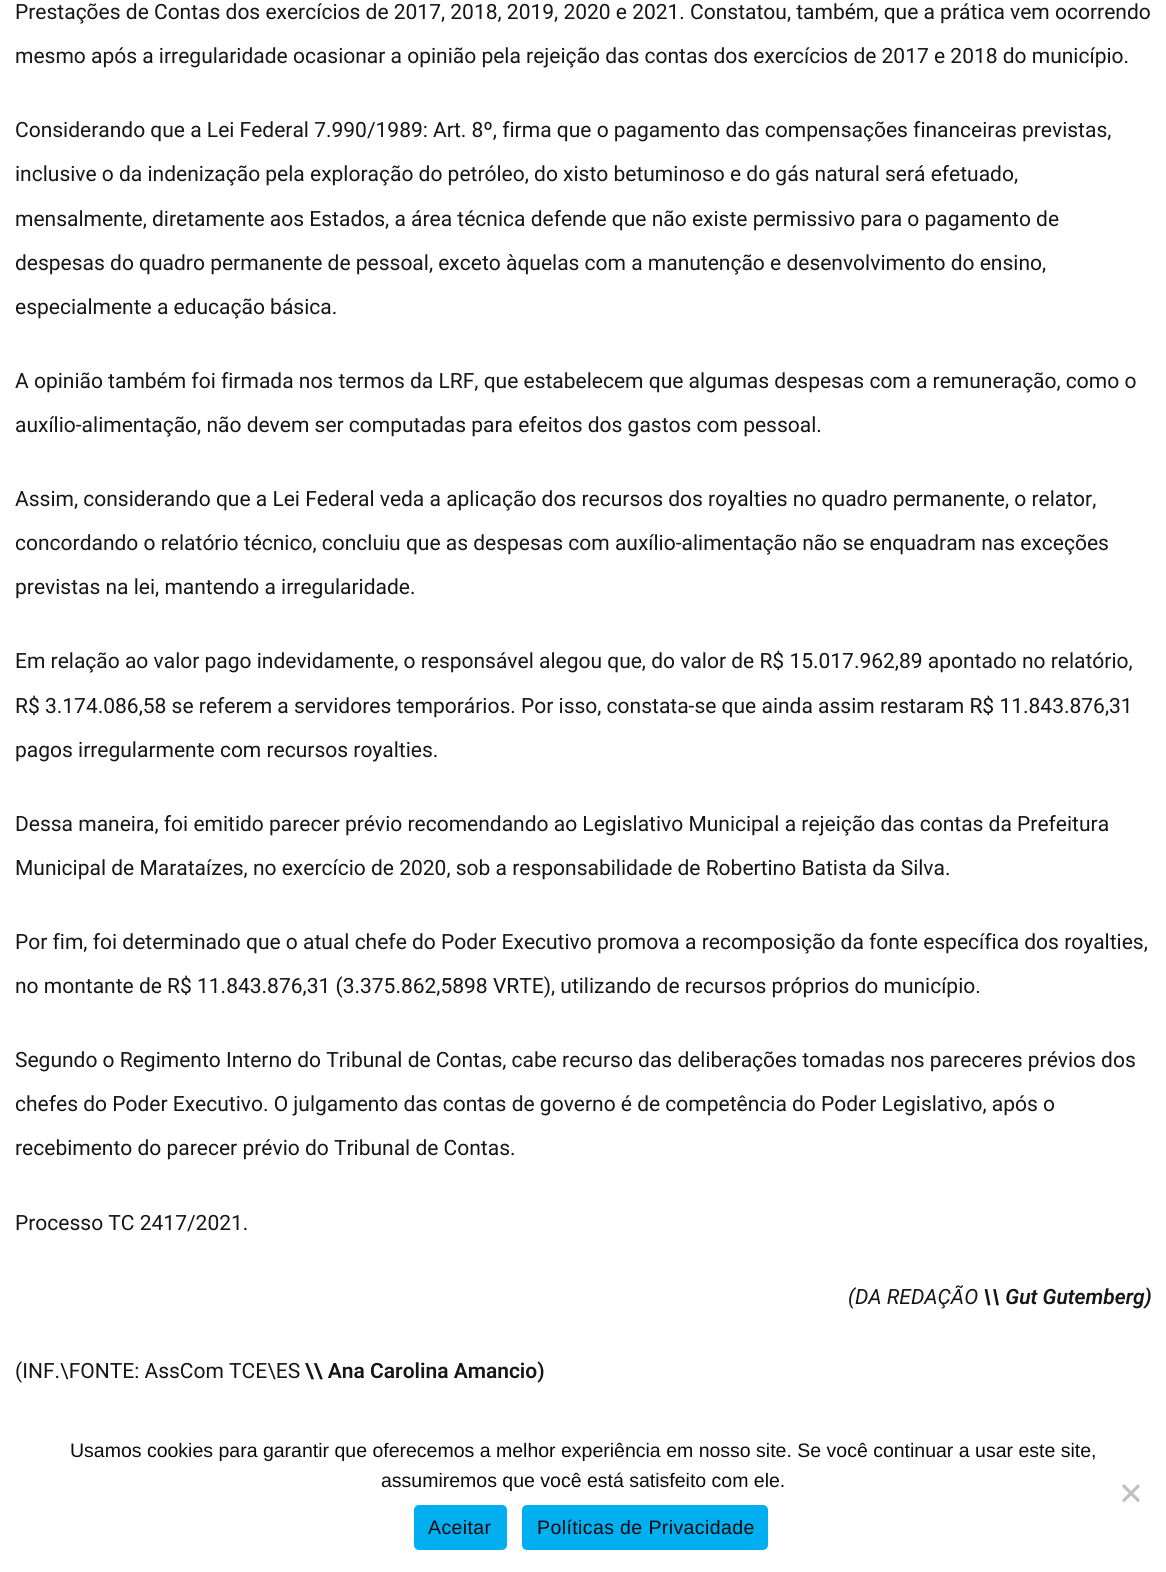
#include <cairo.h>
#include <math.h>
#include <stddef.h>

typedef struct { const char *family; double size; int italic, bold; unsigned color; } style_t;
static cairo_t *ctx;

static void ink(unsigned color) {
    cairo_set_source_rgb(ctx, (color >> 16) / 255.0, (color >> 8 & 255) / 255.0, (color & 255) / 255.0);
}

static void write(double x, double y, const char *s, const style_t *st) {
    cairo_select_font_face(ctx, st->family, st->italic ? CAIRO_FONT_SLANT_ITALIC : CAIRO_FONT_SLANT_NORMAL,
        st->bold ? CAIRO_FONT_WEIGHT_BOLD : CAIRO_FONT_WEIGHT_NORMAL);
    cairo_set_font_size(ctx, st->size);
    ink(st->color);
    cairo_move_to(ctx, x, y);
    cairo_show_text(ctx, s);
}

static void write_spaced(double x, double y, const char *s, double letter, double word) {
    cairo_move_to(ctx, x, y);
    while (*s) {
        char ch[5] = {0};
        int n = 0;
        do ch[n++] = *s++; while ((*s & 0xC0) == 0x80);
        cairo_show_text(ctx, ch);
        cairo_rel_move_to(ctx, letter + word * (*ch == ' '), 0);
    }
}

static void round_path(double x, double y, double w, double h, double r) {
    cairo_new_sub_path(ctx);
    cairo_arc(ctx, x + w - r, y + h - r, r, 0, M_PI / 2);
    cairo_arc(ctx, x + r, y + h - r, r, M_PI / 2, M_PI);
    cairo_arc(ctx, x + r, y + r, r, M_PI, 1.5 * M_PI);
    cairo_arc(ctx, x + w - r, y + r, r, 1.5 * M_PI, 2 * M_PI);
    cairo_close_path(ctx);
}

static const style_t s1 = {"Roboto", 21, 0, 0, 0x171616};
static const style_t s2 = {"Roboto", 21, 1, 0, 0x171616};
static const style_t s3 = {"Roboto SemiBold", 21, 1, 0, 0x171616};
static const style_t s4 = {"Roboto SemiBold", 21, 0, 0, 0x171616};
static const style_t s5 = {"Liberation Sans", 19.5, 0, 0, 0x0a0a0a};

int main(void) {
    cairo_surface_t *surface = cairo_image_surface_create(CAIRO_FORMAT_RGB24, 1166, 1572);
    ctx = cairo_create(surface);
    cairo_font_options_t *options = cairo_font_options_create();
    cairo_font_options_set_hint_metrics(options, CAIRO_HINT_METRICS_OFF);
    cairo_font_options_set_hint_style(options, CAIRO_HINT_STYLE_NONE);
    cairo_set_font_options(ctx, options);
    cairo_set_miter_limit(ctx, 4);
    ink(0xffffff);
    cairo_paint(ctx);
    write(15, 19, "Prestações de Contas dos exercícios de 2017, 2018, 2019, 2020 e 2021. Constatou, também, que a prática vem ocorrendo", &s1);
    write(15, 63, "mesmo após a irregularidade ocasionar a opinião pela rejeição das contas dos exercícios de 2017 e 2018 do município.", &s1);
    write(15, 137, "Considerando que a Lei Federal 7.990/1989: Art. 8º, firma que o pagamento das compensações financeiras previstas,", &s1);
    write(15, 181, "inclusive o da indenização pela exploração do petróleo, do xisto betuminoso e do gás natural será efetuado,", &s1);
    write(15, 226, "mensalmente, diretamente aos Estados, a área técnica defende que não existe permissivo para o pagamento de", &s1);
    write(15, 270, "despesas do quadro permanente de pessoal, exceto àquelas com a manutenção e desenvolvimento do ensino,", &s1);
    write(15, 314, "especialmente a educação básica.", &s1);
    write(15, 388, "A opinião também foi firmada nos termos da LRF, que estabelecem que algumas despesas com a remuneração, como o", &s1);
    write(15, 432, "auxílio-alimentação, não devem ser computadas para efeitos dos gastos com pessoal.", &s1);
    write(15, 506, "Assim, considerando que a Lei Federal veda a aplicação dos recursos dos royalties no quadro permanente, o relator,", &s1);
    write(15, 550, "concordando o relatório técnico, concluiu que as despesas com auxílio-alimentação não se enquadram nas exceções", &s1);
    write(15, 594, "previstas na lei, mantendo a irregularidade.", &s1);
    write(15, 668, "Em relação ao valor pago indevidamente, o responsável alegou que, do valor de R$ 15.017.962,89 apontado no relatório,", &s1);
    write(15, 713, "R$ 3.174.086,58 se referem a servidores temporários. Por isso, constata-se que ainda assim restaram R$ 11.843.876,31", &s1);
    write(15, 757, "pagos irregularmente com recursos royalties.", &s1);
    write(15, 831, "Dessa maneira, foi emitido parecer prévio recomendando ao Legislativo Municipal a rejeição das contas da Prefeitura", &s1);
    write(15, 875, "Municipal de Marataízes, no exercício de 2020, sob a responsabilidade de Robertino Batista da Silva.", &s1);
    write(15, 949, "Por fim, foi determinado que o atual chefe do Poder Executivo promova a recomposição da fonte específica dos royalties,", &s1);
    write(15, 993, "no montante de R$ 11.843.876,31 (3.375.862,5898 VRTE), utilizando de recursos próprios do município.", &s1);
    write(15, 1067, "Segundo o Regimento Interno do Tribunal de Contas, cabe recurso das deliberações tomadas nos pareceres prévios dos", &s1);
    write(15, 1111, "chefes do Poder Executivo. O julgamento das contas de governo é de competência do Poder Legislativo, após o", &s1);
    write(15, 1155, "recebimento do parecer prévio do Tribunal de Contas.", &s1);
    write(15, 1230, "Processo TC 2417/2021.", &s1);
    write(848, 1304, "(DA REDAÇÃO", &s2);
    write(983, 1304, "\\\\ Gut Gutemberg)", &s3);
    write(15, 1378, "(INF.\\FONTE: AssCom TCE\\ES", &s1);
    write(305, 1378, "\\\\ Ana Carolina Amancio)", &s4);
    write(70, 1457, "Usamos cookies para garantir que oferecemos a melhor experiência em nosso site. Se você continuar a usar este site,", &s5);
    write(381, 1487, "assumiremos que você está satisfeito com ele.", &s5);
    ink(0xc0c0c0);
    cairo_new_path(ctx);
    cairo_move_to(ctx, 1138, 1484);
    cairo_line_to(ctx, 1140, 1486.5);
    cairo_line_to(ctx, 1124, 1502.5);
    cairo_line_to(ctx, 1122, 1500);
    cairo_close_path(ctx);
    cairo_fill(ctx);
    cairo_new_path(ctx);
    cairo_move_to(ctx, 1122, 1486.5);
    cairo_line_to(ctx, 1124, 1484);
    cairo_line_to(ctx, 1140, 1500);
    cairo_line_to(ctx, 1138, 1502.5);
    cairo_close_path(ctx);
    cairo_fill(ctx);
    ink(0x00afef);
    round_path(414, 1505, 93, 45, 5);
    cairo_fill(ctx);
    ink(0x0a0a0a);
    write_spaced(428, 1534, "Aceitar", 0.4, 0);
    ink(0x00afef);
    round_path(522, 1505, 246, 45, 5);
    cairo_fill(ctx);
    ink(0x0a0a0a);
    write_spaced(537, 1534, "Políticas de Privacidade", 0.4, 0);
    cairo_surface_write_to_png(surface, "screenshot.png");
    cairo_font_options_destroy(options);
    cairo_destroy(ctx);
    cairo_surface_destroy(surface);
    return 0;
}
